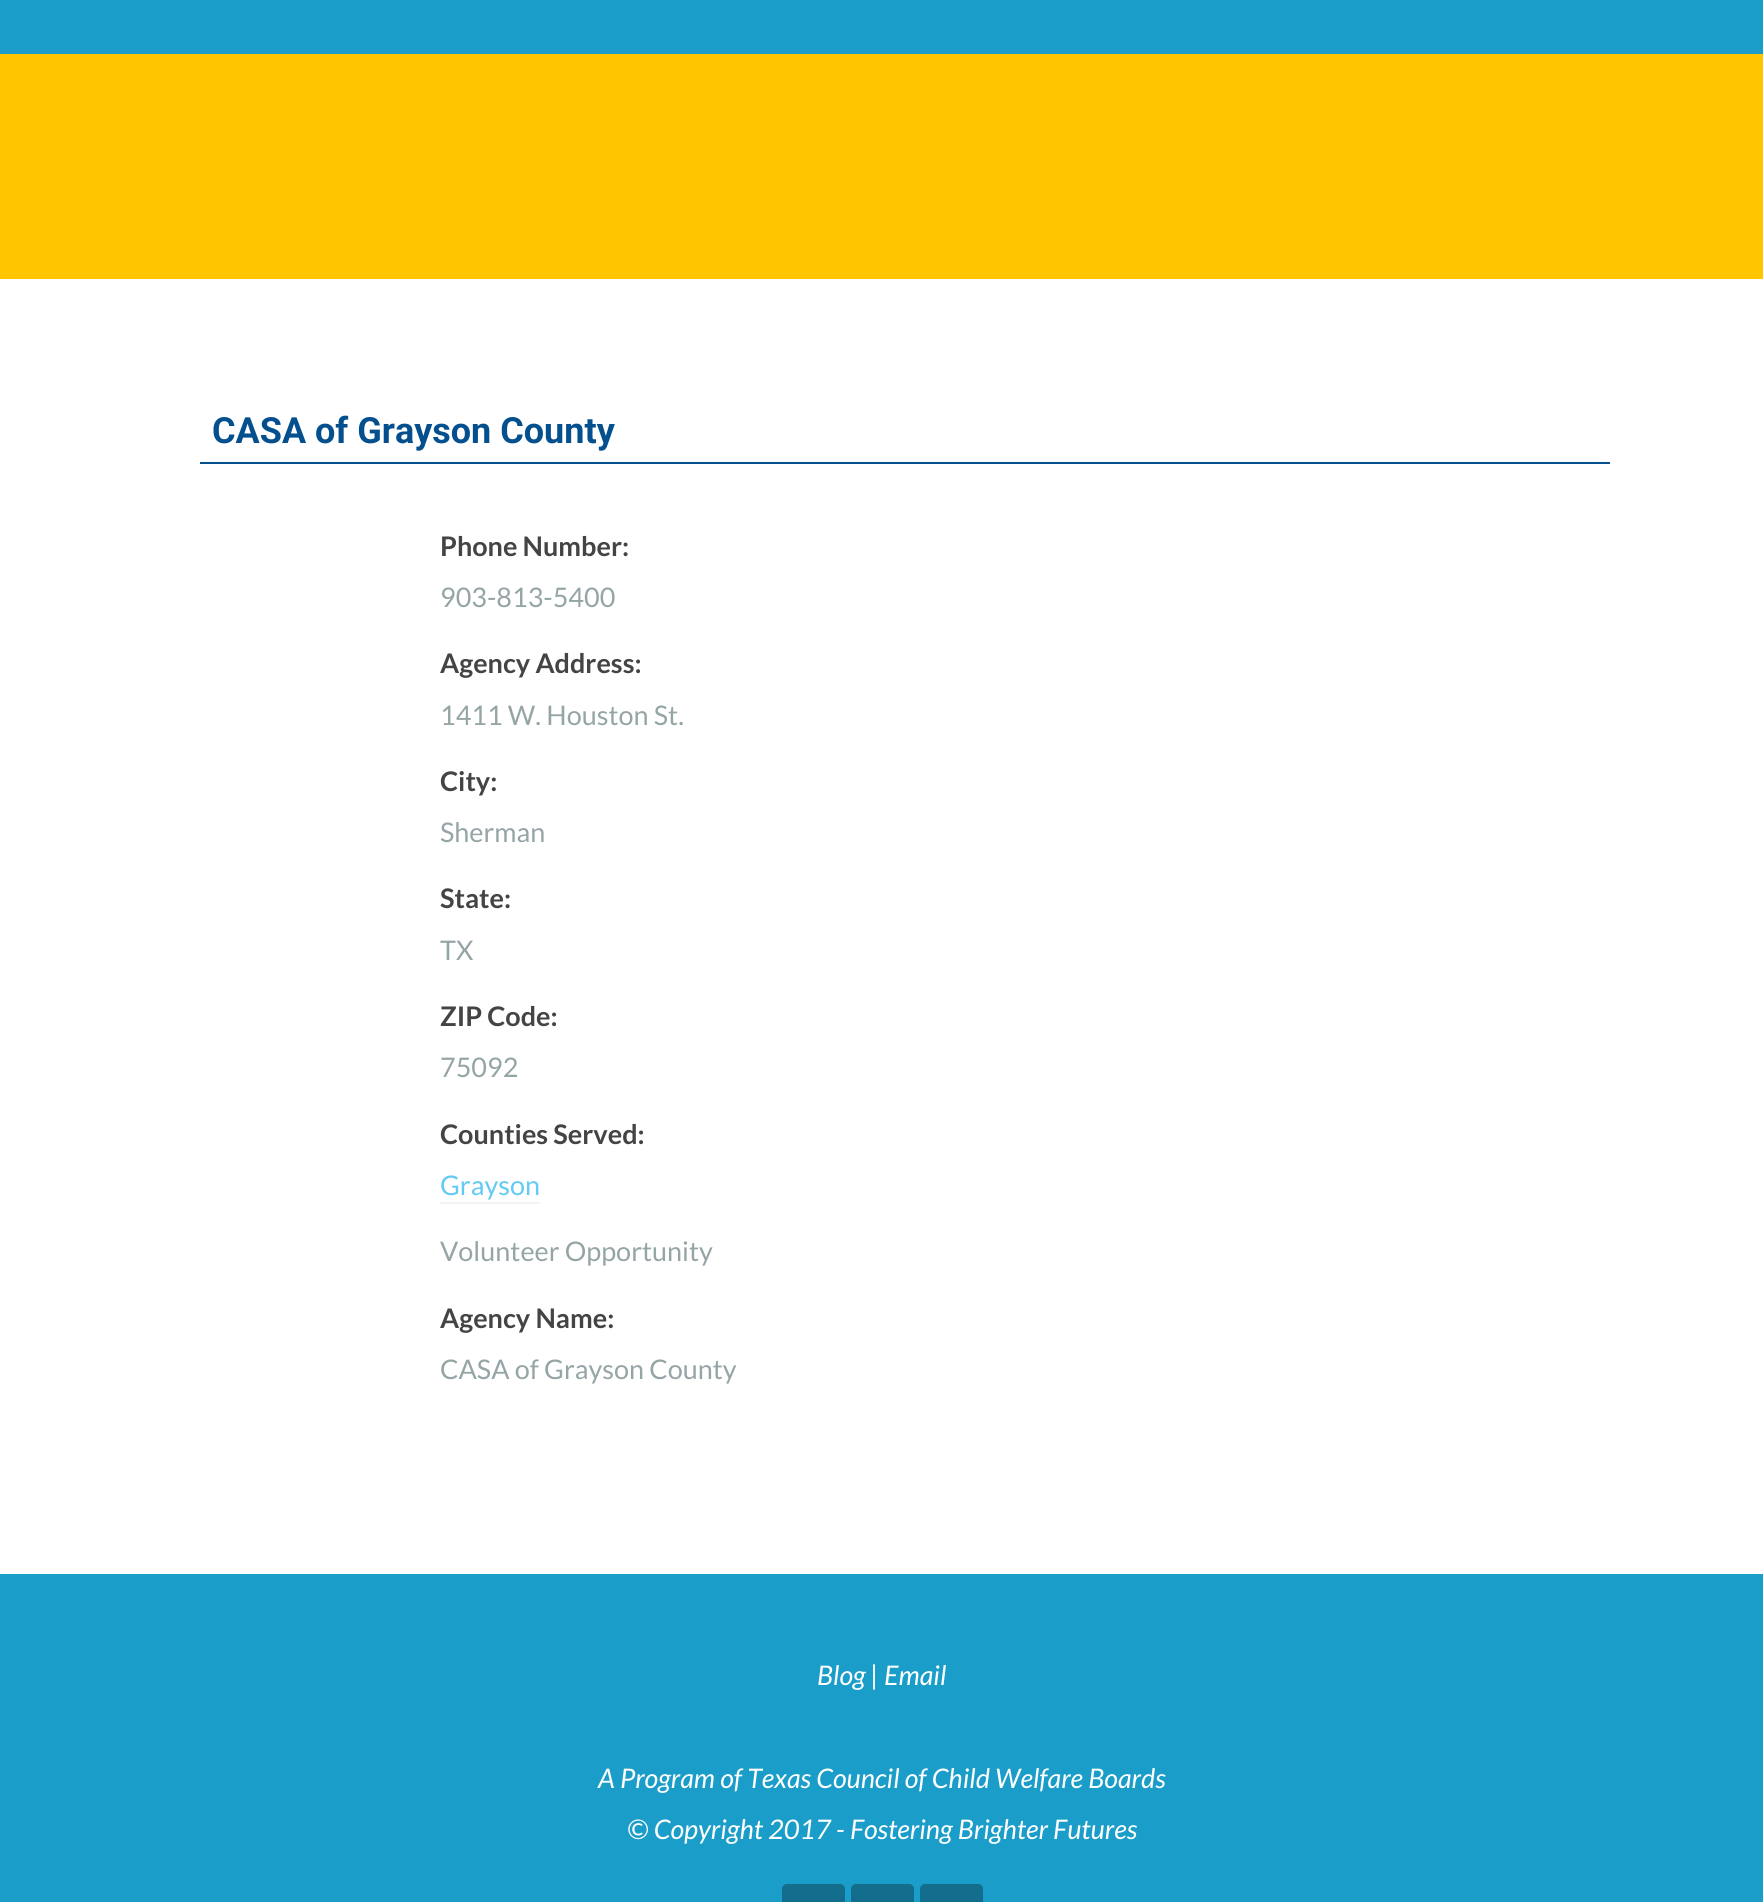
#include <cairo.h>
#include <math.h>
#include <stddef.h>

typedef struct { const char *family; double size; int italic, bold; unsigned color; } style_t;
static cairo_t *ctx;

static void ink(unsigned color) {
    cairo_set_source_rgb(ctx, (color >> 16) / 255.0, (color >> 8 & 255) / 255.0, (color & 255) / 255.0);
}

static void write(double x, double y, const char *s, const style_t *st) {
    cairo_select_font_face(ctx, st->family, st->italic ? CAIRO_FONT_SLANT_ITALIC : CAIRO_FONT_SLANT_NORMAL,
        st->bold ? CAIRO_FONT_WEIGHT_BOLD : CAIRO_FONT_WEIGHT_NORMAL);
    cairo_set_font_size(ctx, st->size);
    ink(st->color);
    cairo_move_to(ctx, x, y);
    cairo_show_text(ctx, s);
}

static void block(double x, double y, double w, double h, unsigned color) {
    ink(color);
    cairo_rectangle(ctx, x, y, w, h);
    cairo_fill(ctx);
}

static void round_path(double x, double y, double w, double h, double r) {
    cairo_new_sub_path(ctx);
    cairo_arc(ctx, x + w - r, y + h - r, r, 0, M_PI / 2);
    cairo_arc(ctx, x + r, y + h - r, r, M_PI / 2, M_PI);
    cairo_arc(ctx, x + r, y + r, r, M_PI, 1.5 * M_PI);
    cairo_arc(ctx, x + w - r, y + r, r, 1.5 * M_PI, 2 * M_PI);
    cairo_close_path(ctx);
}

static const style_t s1 = {"Roboto", 36, 0, 1, 0x044f8d};
static const style_t s2 = {"Lato", 27, 0, 1, 0x444444};
static const style_t s3 = {"Lato", 27, 0, 0, 0x95a5a6};
static const style_t s4 = {"Lato", 27, 0, 0, 0x62caf4};
static const style_t s5 = {"Lato", 27, 1, 0, 0xffffff};

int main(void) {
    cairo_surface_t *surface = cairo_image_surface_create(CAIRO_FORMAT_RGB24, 1763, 1902);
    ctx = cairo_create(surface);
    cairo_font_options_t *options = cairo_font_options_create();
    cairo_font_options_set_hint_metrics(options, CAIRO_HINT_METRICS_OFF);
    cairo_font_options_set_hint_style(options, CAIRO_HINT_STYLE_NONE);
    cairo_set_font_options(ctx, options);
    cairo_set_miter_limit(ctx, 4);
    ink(0xffffff);
    cairo_paint(ctx);
    block(0, 0, 1763, 54, 0x1a9dc8);
    block(0, 54, 1763, 225, 0xffc600);
    block(200, 462, 1410, 2, 0x044f8d);
    write(212, 443, "CASA of Grayson County", &s1);
    write(440, 556, "Phone Number:", &s2);
    write(440, 607, "903-813-5400", &s3);
    write(440, 673, "Agency Address:", &s2);
    write(440, 725, "1411 W. Houston St.", &s3);
    write(440, 791, "City:", &s2);
    write(440, 842, "Sherman", &s3);
    write(440, 908, "State:", &s2);
    write(440, 960, "TX", &s3);
    write(440, 1026, "ZIP Code:", &s2);
    write(440, 1077, "75092", &s3);
    write(440, 1144, "Counties Served:", &s2);
    write(440, 1195, "Grayson", &s4);
    block(440, 1202, 100, 2, 0xf3f3f3);
    write(440, 1261, "Volunteer Opportunity", &s3);
    write(440, 1328, "Agency Name:", &s2);
    write(440, 1379, "CASA of Grayson County", &s3);
    block(0, 1574, 1763, 328, 0x1a9dc8);
    write(817, 1685, "Blog | Email", &s5);
    write(598, 1788, "A Program of Texas Council of Child Welfare Boards", &s5);
    write(627, 1839, "© Copyright 2017 - Fostering Brighter Futures", &s5);
    ink(0x126e8c);
    round_path(782, 1884, 63, 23, 5);
    cairo_fill(ctx);
    round_path(851, 1884, 63, 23, 5);
    cairo_fill(ctx);
    round_path(920, 1884, 63, 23, 5);
    cairo_fill(ctx);
    cairo_surface_write_to_png(surface, "screenshot.png");
    cairo_font_options_destroy(options);
    cairo_destroy(ctx);
    cairo_surface_destroy(surface);
    return 0;
}
